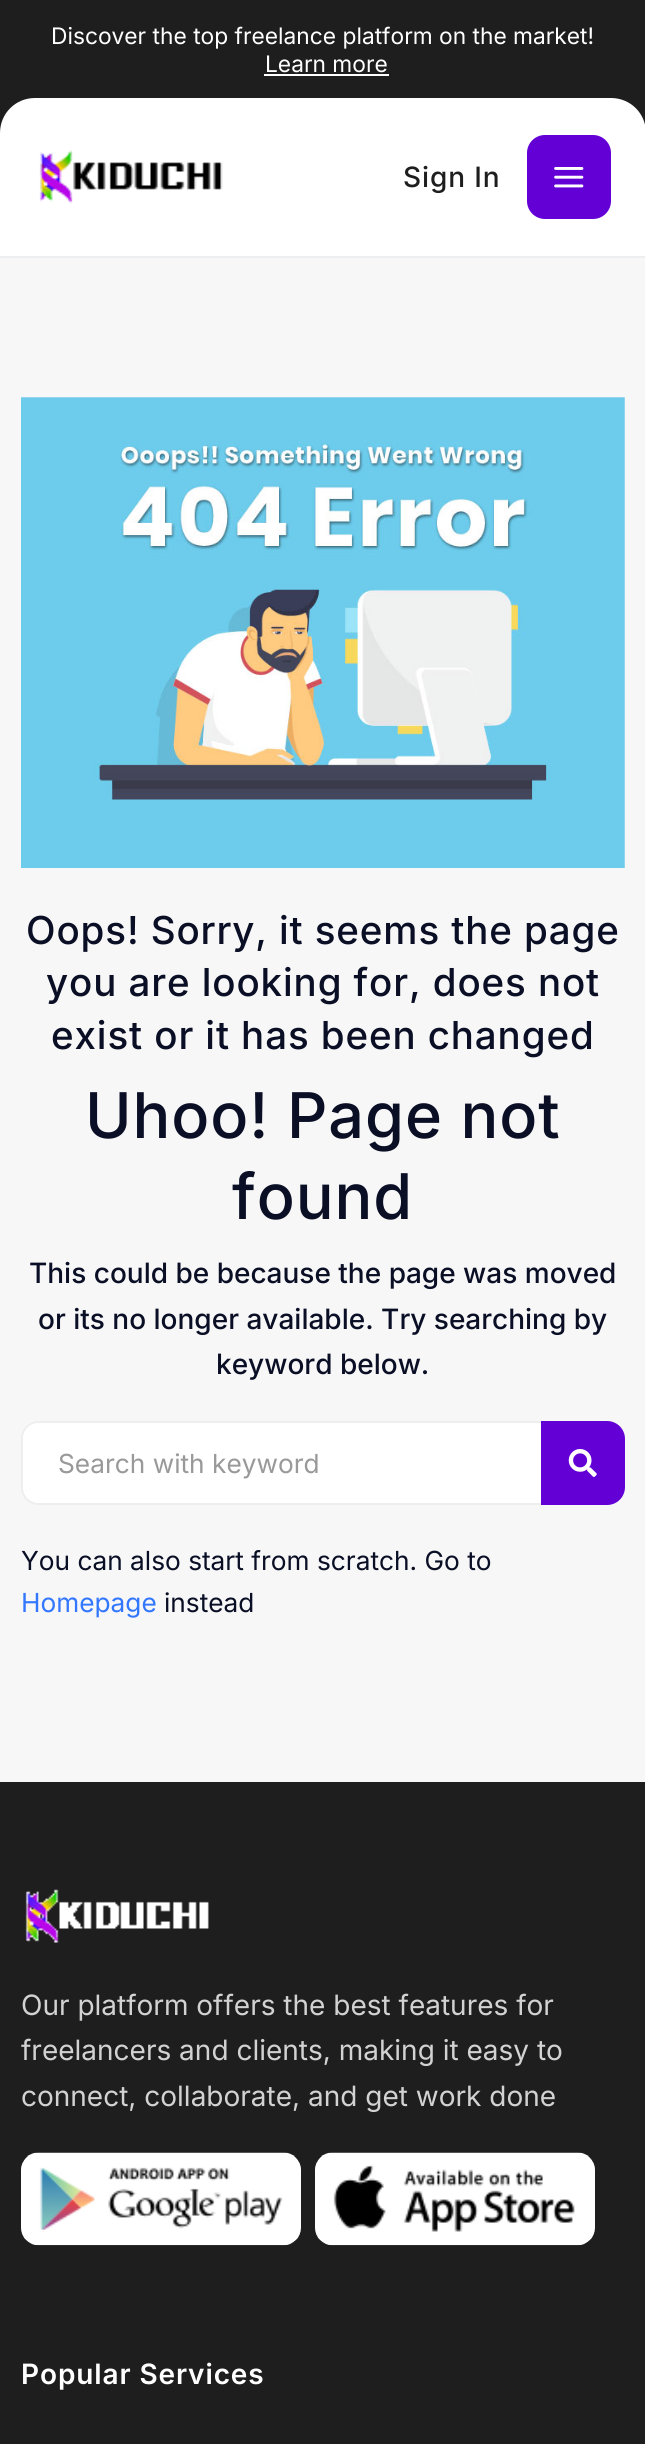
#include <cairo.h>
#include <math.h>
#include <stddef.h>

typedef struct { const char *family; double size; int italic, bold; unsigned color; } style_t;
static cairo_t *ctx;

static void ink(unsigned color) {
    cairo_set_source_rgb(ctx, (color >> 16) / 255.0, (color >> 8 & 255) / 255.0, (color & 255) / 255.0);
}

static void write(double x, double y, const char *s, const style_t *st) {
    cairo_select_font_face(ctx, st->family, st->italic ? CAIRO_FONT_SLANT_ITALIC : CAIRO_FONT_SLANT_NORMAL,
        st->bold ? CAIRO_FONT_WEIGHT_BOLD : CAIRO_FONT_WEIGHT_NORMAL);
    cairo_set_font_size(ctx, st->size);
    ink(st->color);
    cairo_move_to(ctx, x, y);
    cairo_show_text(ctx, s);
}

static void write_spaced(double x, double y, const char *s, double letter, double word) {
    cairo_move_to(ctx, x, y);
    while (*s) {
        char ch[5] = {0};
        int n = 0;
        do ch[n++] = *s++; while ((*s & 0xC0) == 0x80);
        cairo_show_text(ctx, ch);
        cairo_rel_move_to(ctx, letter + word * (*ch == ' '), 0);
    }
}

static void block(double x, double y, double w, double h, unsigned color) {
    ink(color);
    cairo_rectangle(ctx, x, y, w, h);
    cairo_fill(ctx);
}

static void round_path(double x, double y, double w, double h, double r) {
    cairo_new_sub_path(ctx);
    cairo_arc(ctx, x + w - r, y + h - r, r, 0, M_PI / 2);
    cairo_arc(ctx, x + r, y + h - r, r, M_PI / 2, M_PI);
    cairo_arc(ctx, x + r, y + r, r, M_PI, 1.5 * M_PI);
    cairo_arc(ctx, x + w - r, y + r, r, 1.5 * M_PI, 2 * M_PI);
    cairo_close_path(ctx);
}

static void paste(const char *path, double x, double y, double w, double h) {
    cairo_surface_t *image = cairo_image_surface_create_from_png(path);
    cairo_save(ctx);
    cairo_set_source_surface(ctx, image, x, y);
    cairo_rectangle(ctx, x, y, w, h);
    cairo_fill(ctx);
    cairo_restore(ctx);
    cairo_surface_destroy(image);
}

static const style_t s1 = {"Inter", 22.75, 0, 0, 0xffffff};
static const style_t s2 = {"Inter Medium", 28, 0, 0, 0x0a0f26};
static const style_t s3 = {"Inter", 26.25, 0, 0, 0x999999};
static const style_t s4 = {"Inter", 26.25, 0, 0, 0x0a0f26};
static const style_t s5 = {"Inter", 26.25, 0, 0, 0x3377ff};
static const style_t s6 = {"Inter", 28, 0, 0, 0xd2d2d2};

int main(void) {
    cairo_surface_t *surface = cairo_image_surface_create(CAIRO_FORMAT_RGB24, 645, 2444);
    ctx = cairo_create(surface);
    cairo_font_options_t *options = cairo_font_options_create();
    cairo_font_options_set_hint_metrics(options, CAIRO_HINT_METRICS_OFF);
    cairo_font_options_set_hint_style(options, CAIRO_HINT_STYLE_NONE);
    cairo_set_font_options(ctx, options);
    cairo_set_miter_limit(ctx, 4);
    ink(0xf7f7f7);
    cairo_paint(ctx);
    block(0, 0, 645, 133, 0x1e1e1e);
    block(0, 256, 645, 2, 0xedeef0);
    write(51, 44, "Discover the top freelance platform on the market!", &s1);
    write(265, 72, "Learn more", &s1);
    block(264, 74, 125, 2, 0xffffff);
    cairo_new_path(ctx);
    cairo_move_to(ctx, 35, 98);
    cairo_line_to(ctx, 611, 98);
    cairo_curve_to(ctx, 630.5, 98, 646, 113.5, 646, 133);
    cairo_line_to(ctx, 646, 256);
    cairo_line_to(ctx, 0, 256);
    cairo_line_to(ctx, 0, 133);
    cairo_curve_to(ctx, 0, 113.5, 15.5, 98, 35, 98);
    cairo_close_path(ctx);
    cairo_fill(ctx);
    paste("pic1.png", 39, 150, 184, 54);
    cairo_select_font_face(ctx, "Inter Medium", CAIRO_FONT_SLANT_NORMAL, CAIRO_FONT_WEIGHT_NORMAL);
    cairo_set_font_size(ctx, 28);
    ink(0x1e1e1e);
    write_spaced(403, 187, "Sign In", 0.9, 0);
    ink(0x6300d6);
    round_path(527, 135, 84, 84, 18);
    cairo_fill(ctx);
    paste("pic2.png", 554, 167, 30, 21);
    paste("pic3.png", 21, 397, 604, 471);
    cairo_set_font_size(ctx, 38.5);
    ink(0x0a0f26);
    write_spaced(26, 944, "Oops! Sorry, it seems the page", 0.9, 0);
    write_spaced(46, 996, "you are looking for, does not", 0.9, 0);
    write_spaced(51, 1049, "exist or it has been changed", 0.9, 0);
    cairo_set_font_size(ctx, 63);
    write_spaced(85, 1138, "Uhoo! Page not", 0.9, 0);
    write_spaced(232, 1219, "found", 0.9, 0);
    write(29, 1283, "This could be because the page was moved", &s2);
    write(38, 1329, "or its no longer available. Try searching by", &s2);
    write(216, 1374, "keyword below.", &s2);
    ink(0xffffff);
    round_path(21, 1421, 604, 84, 18);
    cairo_fill(ctx);
    ink(0xeeeeee);
    cairo_set_fill_rule(ctx, CAIRO_FILL_RULE_EVEN_ODD);
    cairo_new_path(ctx);
    cairo_move_to(ctx, 38, 1421);
    cairo_line_to(ctx, 607, 1421);
    cairo_curve_to(ctx, 617, 1421, 625, 1429, 625, 1438);
    cairo_line_to(ctx, 625, 1488);
    cairo_curve_to(ctx, 625, 1497, 617, 1505, 607, 1505);
    cairo_line_to(ctx, 38, 1505);
    cairo_curve_to(ctx, 29, 1505, 21, 1497, 21, 1488);
    cairo_line_to(ctx, 21, 1438);
    cairo_curve_to(ctx, 21, 1429, 29, 1421, 38, 1421);
    cairo_close_path(ctx);
    cairo_move_to(ctx, 38, 1423);
    cairo_line_to(ctx, 607, 1423);
    cairo_curve_to(ctx, 617, 1423, 625, 1430, 625, 1438);
    cairo_line_to(ctx, 625, 1488);
    cairo_curve_to(ctx, 625, 1496, 617, 1503, 607, 1503);
    cairo_line_to(ctx, 38, 1503);
    cairo_curve_to(ctx, 30, 1503, 23, 1496, 23, 1488);
    cairo_line_to(ctx, 23, 1438);
    cairo_curve_to(ctx, 23, 1430, 30, 1423, 38, 1423);
    cairo_close_path(ctx);
    cairo_fill(ctx);
    write(58, 1473, "Search with keyword", &s3);
    ink(0x6300d6);
    cairo_new_path(ctx);
    cairo_move_to(ctx, 541, 1421);
    cairo_line_to(ctx, 607, 1421);
    cairo_curve_to(ctx, 617, 1421, 625, 1429, 625, 1439);
    cairo_line_to(ctx, 625, 1487);
    cairo_curve_to(ctx, 625, 1497, 617, 1505, 607, 1505);
    cairo_line_to(ctx, 541, 1505);
    cairo_close_path(ctx);
    cairo_fill(ctx);
    paste("pic4.png", 568, 1449, 29, 28);
    write(21, 1570, "You can also start from scratch. Go to", &s4);
    write(21, 1612, "Homepage", &s5);
    write(164, 1612, "instead", &s4);
    block(0, 1782, 645, 662, 0x1e1e1e);
    paste("pic5.png", 25, 1889, 184, 54);
    write(21, 2015, "Our platform offers the best features for", &s6);
    write(21, 2060, "freelancers and clients, making it easy to", &s6);
    write(21, 2106, "connect, collaborate, and get work done", &s6);
    paste("pic6.png", 21, 2152, 280, 94);
    paste("pic7.png", 315, 2152, 280, 94);
    cairo_select_font_face(ctx, "Inter SemiBold", CAIRO_FONT_SLANT_NORMAL, CAIRO_FONT_WEIGHT_NORMAL);
    ink(0xffffff);
    write_spaced(21, 2384, "Popular Services", 0.9, 0);
    cairo_surface_write_to_png(surface, "screenshot.png");
    cairo_font_options_destroy(options);
    cairo_destroy(ctx);
    cairo_surface_destroy(surface);
    return 0;
}
